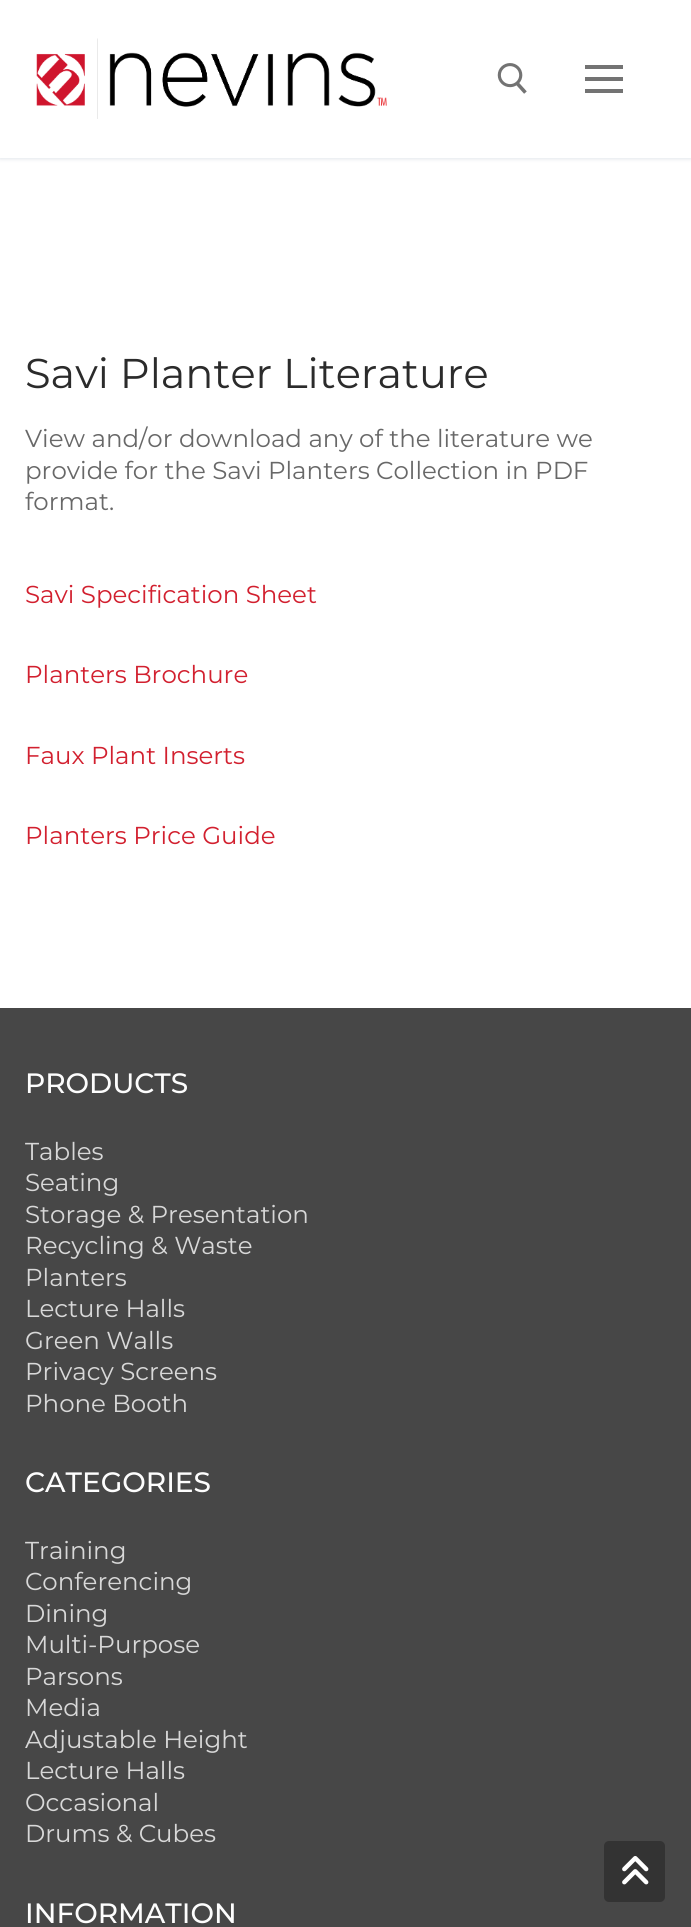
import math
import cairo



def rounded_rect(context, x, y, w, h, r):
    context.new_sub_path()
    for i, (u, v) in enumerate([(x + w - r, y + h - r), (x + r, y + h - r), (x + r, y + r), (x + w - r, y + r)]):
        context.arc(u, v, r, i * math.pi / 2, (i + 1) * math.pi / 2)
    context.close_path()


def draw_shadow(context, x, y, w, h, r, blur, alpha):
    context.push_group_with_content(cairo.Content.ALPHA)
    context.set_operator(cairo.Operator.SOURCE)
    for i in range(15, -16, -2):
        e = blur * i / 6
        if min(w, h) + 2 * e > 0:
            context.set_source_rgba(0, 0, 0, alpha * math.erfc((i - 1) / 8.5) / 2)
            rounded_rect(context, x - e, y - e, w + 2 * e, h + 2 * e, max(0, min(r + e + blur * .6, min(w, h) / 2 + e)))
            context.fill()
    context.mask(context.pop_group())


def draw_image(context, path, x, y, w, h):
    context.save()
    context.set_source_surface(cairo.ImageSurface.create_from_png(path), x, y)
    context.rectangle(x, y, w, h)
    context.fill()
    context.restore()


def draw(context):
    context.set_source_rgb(1, 1, 1)
    context.paint()
    context.set_source_rgb(225 / 255, 229 / 255, 234 / 255)
    draw_shadow(context, 0, 2, 691, 157, 0, 2, 1)
    context.set_source_rgb(1, 1, 1)
    context.rectangle(0, 0, 691, 158)
    context.fill()
    draw_image(context, "images/1.png", 36, 38, 351, 81)
    draw_image(context, "images/2.png", 497, 63, 30, 31)
    context.set_source_rgb(115 / 255, 115 / 255, 115 / 255)
    context.rectangle(585, 77, 38, 4)
    context.fill()
    context.rectangle(585, 65, 38, 4)
    context.fill()
    context.rectangle(585, 89, 38, 4)
    context.fill()
    context.set_source_rgb(71 / 255, 71 / 255, 71 / 255)
    context.rectangle(0, 1008, 691, 919)
    context.fill()
    context.set_source_rgb(51 / 255, 51 / 255, 51 / 255)
    rounded_rect(context, 604, 1841, 61, 61, 5)
    context.fill()
    draw_image(context, "images/3.png", 622, 1856, 27, 29)
    context.select_font_face("Montserrat")
    context.set_font_size(41.6)
    context.set_source_rgb(43 / 255, 43 / 255, 43 / 255)
    context.move_to(25, 388)
    context.show_text("Savi Planter Literature")
    context.set_font_size(24.5)
    context.set_source_rgb(104 / 255, 104 / 255, 104 / 255)
    context.move_to(25, 447)
    context.show_text("View and/or download any of the literature we")
    context.move_to(25, 479)
    context.show_text("provide for the Savi Planters Collection in PDF")
    context.move_to(25, 510)
    context.show_text("format.")
    context.set_source_rgb(210 / 255, 32 / 255, 47 / 255)
    context.move_to(25, 603)
    context.show_text("Savi Specification Sheet")
    context.move_to(25, 683)
    context.show_text("Planters Brochure")
    context.move_to(25, 764)
    context.show_text("Faux Plant Inserts")
    context.move_to(25, 844)
    context.show_text("Planters Price Guide")
    context.select_font_face("Montserrat Medium")
    context.set_font_size(28)
    context.set_source_rgb(253 / 255, 253 / 255, 253 / 255)
    context.move_to(25, 1093)
    context.show_text("PRODUCTS")
    context.select_font_face("Montserrat")
    context.set_font_size(24.5)
    context.set_source_rgb(216 / 255, 216 / 255, 216 / 255)
    context.move_to(25, 1160)
    context.show_text("Tables")
    context.move_to(25, 1191)
    context.show_text("Seating")
    context.move_to(25, 1223)
    context.show_text("Storage & Presentation")
    context.move_to(25, 1254)
    context.show_text("Recycling & Waste")
    context.move_to(25, 1286)
    context.show_text("Planters")
    context.move_to(25, 1317)
    context.show_text("Lecture Halls")
    context.move_to(25, 1349)
    context.show_text("Green Walls")
    context.move_to(25, 1380)
    context.show_text("Privacy Screens")
    context.move_to(25, 1412)
    context.show_text("Phone Booth")
    context.select_font_face("Montserrat Medium")
    context.set_font_size(28)
    context.set_source_rgb(253 / 255, 253 / 255, 253 / 255)
    context.move_to(25, 1492)
    context.show_text("CATEGORIES")
    context.select_font_face("Montserrat")
    context.set_font_size(24.5)
    context.set_source_rgb(216 / 255, 216 / 255, 216 / 255)
    context.move_to(25, 1559)
    context.show_text("Training")
    context.move_to(25, 1590)
    context.show_text("Conferencing")
    context.move_to(25, 1622)
    context.show_text("Dining")
    context.move_to(25, 1653)
    context.show_text("Multi-Purpose")
    context.move_to(25, 1685)
    context.show_text("Parsons")
    context.move_to(25, 1716)
    context.show_text("Media")
    context.move_to(25, 1748)
    context.show_text("Adjustable Height")
    context.move_to(25, 1779)
    context.show_text("Lecture Halls")
    context.move_to(25, 1811)
    context.show_text("Occasional")
    context.move_to(25, 1842)
    context.show_text("Drums & Cubes")
    context.select_font_face("Montserrat Medium")
    context.set_font_size(28)
    context.set_source_rgb(253 / 255, 253 / 255, 253 / 255)
    context.move_to(25, 1923)
    context.show_text("INFORMATION")


surface = cairo.ImageSurface(cairo.Format.RGB24, 691, 1927)
context = cairo.Context(surface)
options = cairo.FontOptions()
options.set_hint_metrics(cairo.HintMetrics.OFF)
options.set_hint_style(cairo.HintStyle.NONE)
context.set_font_options(options)
context.set_miter_limit(4)
draw(context)
surface.write_to_png("out.png")
